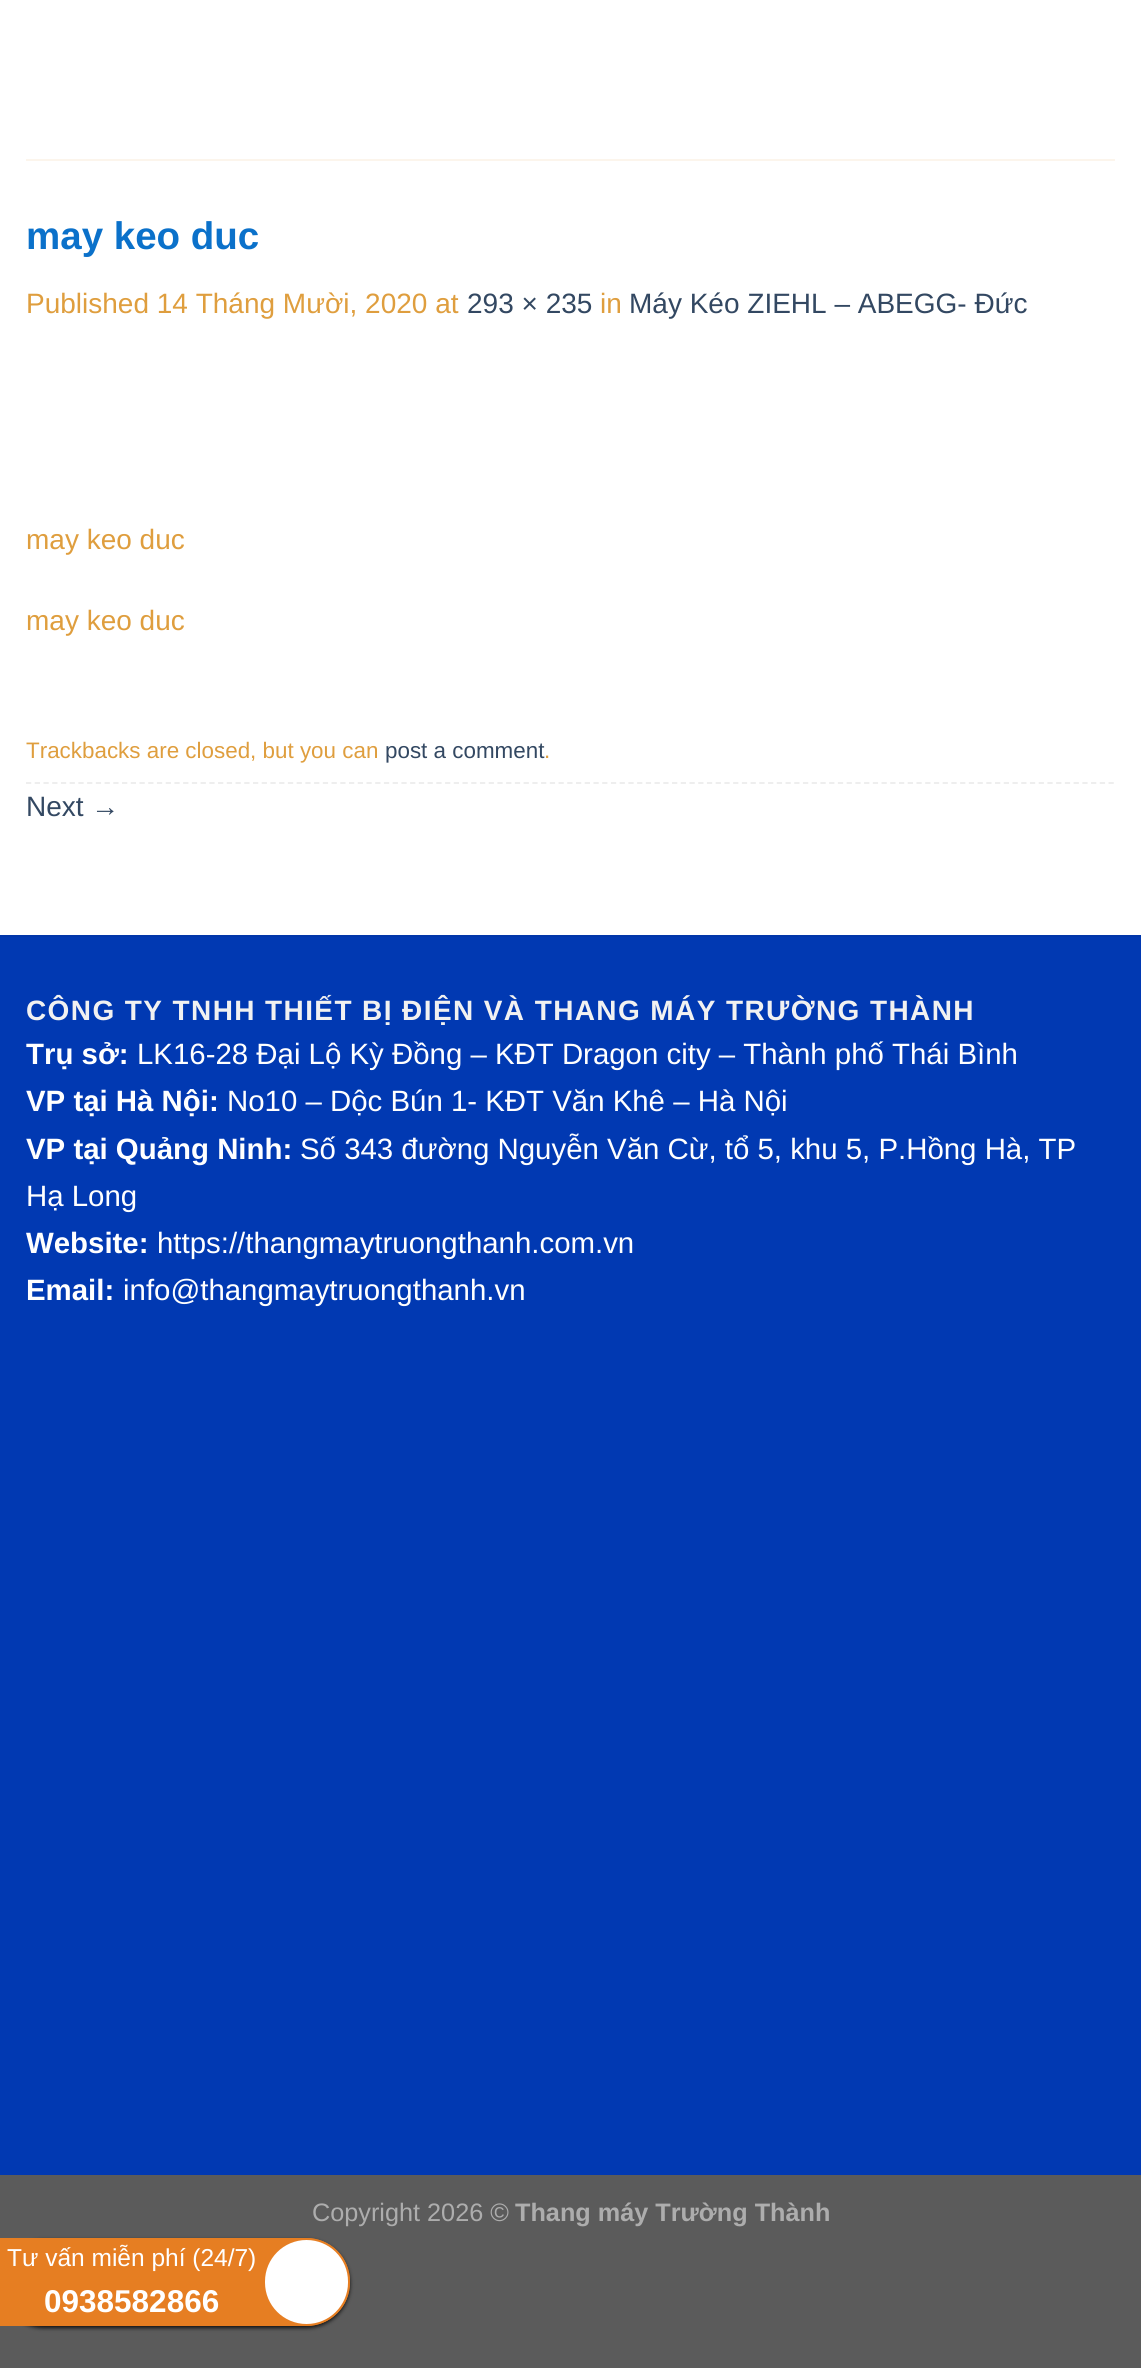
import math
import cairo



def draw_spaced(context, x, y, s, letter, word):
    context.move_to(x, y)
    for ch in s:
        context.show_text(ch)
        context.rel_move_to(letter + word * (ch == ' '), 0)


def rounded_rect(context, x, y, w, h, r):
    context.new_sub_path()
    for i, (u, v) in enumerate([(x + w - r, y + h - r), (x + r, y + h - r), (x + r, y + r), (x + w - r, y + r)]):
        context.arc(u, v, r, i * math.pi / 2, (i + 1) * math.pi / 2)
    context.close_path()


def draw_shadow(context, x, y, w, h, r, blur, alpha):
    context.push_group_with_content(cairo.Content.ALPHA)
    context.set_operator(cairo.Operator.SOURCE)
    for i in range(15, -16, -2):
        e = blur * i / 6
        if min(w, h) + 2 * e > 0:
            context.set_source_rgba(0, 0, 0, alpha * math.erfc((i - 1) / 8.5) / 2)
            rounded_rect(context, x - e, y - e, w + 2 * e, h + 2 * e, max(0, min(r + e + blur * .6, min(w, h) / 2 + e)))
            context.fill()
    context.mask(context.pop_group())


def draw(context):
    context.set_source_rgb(91 / 255, 91 / 255, 91 / 255)
    context.paint()
    context.set_source_rgb(1, 1, 1)
    context.rectangle(0, 0, 1141, 935)
    context.fill()
    context.set_source_rgb(252 / 255, 245 / 255, 236 / 255)
    context.rectangle(26, 159, 1089, 2)
    context.fill()
    context.new_path()
    context.move_to(26, 783)
    context.line_to(1115, 783)
    context.set_source_rgb(236 / 255, 236 / 255, 236 / 255)
    context.set_line_width(1.8)
    context.set_dash([5.25, 3.48])
    context.stroke()
    context.set_source_rgb(1 / 255, 57 / 255, 178 / 255)
    context.rectangle(0, 937, 1141, 1238)
    context.fill()
    context.set_source_rgb(1 / 255, 54 / 255, 169 / 255)
    context.rectangle(0, 935, 1141, 2)
    context.fill()
    context.set_source_rgb(0, 0, 0)
    draw_shadow(context, 0, 2240, 350, 88, 44, 2, 0.8)
    context.set_source_rgb(230 / 255, 126 / 255, 34 / 255)
    context.new_path()
    context.move_to(0, 2238)
    context.line_to(306, 2238)
    context.curve_to(330.5, 2238, 350, 2257.5, 350, 2282)
    context.curve_to(350, 2306.5, 330.5, 2326, 306, 2326)
    context.line_to(0, 2326)
    context.close_path()
    context.fill()
    context.set_source_rgb(1, 1, 1)
    rounded_rect(context, 264, 2239, 85, 86, 42.5)
    context.fill_preserve()
    context.set_source_rgb(230 / 255, 126 / 255, 34 / 255)
    context.set_line_width(2)
    context.set_dash([])
    context.stroke()
    context.select_font_face("Liberation Sans", cairo.FontSlant.NORMAL, cairo.FontWeight.BOLD)
    context.set_font_size(38.5)
    context.set_source_rgb(11 / 255, 113 / 255, 202 / 255)
    context.move_to(26, 249)
    context.show_text("may keo duc")
    context.select_font_face("Liberation Sans")
    context.set_font_size(28)
    context.set_source_rgb(223 / 255, 158 / 255, 62 / 255)
    context.move_to(26, 313)
    context.show_text("Published 14 Tháng Mười, 2020 at")
    context.set_source_rgb(51 / 255, 72 / 255, 98 / 255)
    context.move_to(467, 313)
    context.show_text("293 × 235")
    context.set_source_rgb(223 / 255, 158 / 255, 62 / 255)
    context.move_to(600, 313)
    context.show_text("in")
    context.set_source_rgb(51 / 255, 72 / 255, 98 / 255)
    context.move_to(629, 313)
    context.show_text("Máy Kéo ZIEHL – ABEGG- Đức")
    context.set_source_rgb(223 / 255, 158 / 255, 62 / 255)
    context.move_to(26, 549)
    context.show_text("may keo duc")
    context.move_to(26, 630)
    context.show_text("may keo duc")
    context.set_font_size(22.4)
    context.move_to(26, 758)
    context.show_text("Trackbacks are closed, but you can")
    context.set_source_rgb(51 / 255, 72 / 255, 98 / 255)
    context.move_to(385, 758)
    context.show_text("post a comment")
    context.set_source_rgb(223 / 255, 158 / 255, 62 / 255)
    context.move_to(544, 758)
    context.show_text(".")
    context.set_font_size(28)
    context.set_source_rgb(51 / 255, 72 / 255, 98 / 255)
    context.move_to(26, 816)
    context.show_text("Next →")
    context.select_font_face("Liberation Sans", cairo.FontSlant.NORMAL, cairo.FontWeight.BOLD)
    context.set_source_rgb(241 / 255, 241 / 255, 241 / 255)
    draw_spaced(context, 26, 1020, "CÔNG TY TNHH THIẾT BỊ ĐIỆN VÀ THANG MÁY TRƯỜNG THÀNH", 1.4, 0)
    context.set_font_size(29.4)
    context.set_source_rgb(1, 1, 1)
    context.move_to(26, 1064)
    context.show_text("Trụ sở:")
    context.select_font_face("Liberation Sans")
    context.move_to(137, 1064)
    context.show_text("LK16-28 Đại Lộ Kỳ Đồng – KĐT Dragon city – Thành phố Thái Bình")
    context.select_font_face("Liberation Sans", cairo.FontSlant.NORMAL, cairo.FontWeight.BOLD)
    context.move_to(26, 1111)
    context.show_text("VP tại Hà Nội:")
    context.select_font_face("Liberation Sans")
    context.move_to(227, 1111)
    context.show_text("No10 – Dộc Bún 1- KĐT Văn Khê – Hà Nội")
    context.select_font_face("Liberation Sans", cairo.FontSlant.NORMAL, cairo.FontWeight.BOLD)
    context.move_to(26, 1159)
    context.show_text("VP tại Quảng Ninh:")
    context.select_font_face("Liberation Sans")
    context.move_to(300, 1159)
    context.show_text("Số 343 đường Nguyễn Văn Cừ, tổ 5, khu 5, P.Hồng Hà, TP")
    context.move_to(26, 1206)
    context.show_text("Hạ Long")
    context.select_font_face("Liberation Sans", cairo.FontSlant.NORMAL, cairo.FontWeight.BOLD)
    context.move_to(26, 1253)
    context.show_text("Website:")
    context.select_font_face("Liberation Sans")
    context.move_to(157, 1253)
    context.show_text("https://thangmaytruongthanh.com.vn")
    context.select_font_face("Liberation Sans", cairo.FontSlant.NORMAL, cairo.FontWeight.BOLD)
    context.move_to(26, 1300)
    context.show_text("Email:")
    context.select_font_face("Liberation Sans")
    context.move_to(123, 1300)
    context.show_text("info@thangmaytruongthanh.vn")
    context.set_font_size(25.25)
    context.set_source_rgb(173 / 255, 173 / 255, 173 / 255)
    context.move_to(312, 2221)
    context.show_text("Copyright 2026 ©")
    context.select_font_face("Liberation Sans", cairo.FontSlant.NORMAL, cairo.FontWeight.BOLD)
    context.move_to(515, 2221)
    context.show_text("Thang máy Trường Thành")
    context.select_font_face("Liberation Sans")
    context.set_font_size(24.5)
    context.set_source_rgb(1, 1, 1)
    context.move_to(7, 2266)
    context.show_text("Tư vấn miễn phí (24/7)")
    context.select_font_face("Liberation Sans", cairo.FontSlant.NORMAL, cairo.FontWeight.BOLD)
    context.set_font_size(31.5)
    context.move_to(44, 2312)
    context.show_text("0938582866")


surface = cairo.ImageSurface(cairo.Format.RGB24, 1141, 2368)
context = cairo.Context(surface)
options = cairo.FontOptions()
options.set_hint_metrics(cairo.HintMetrics.OFF)
options.set_hint_style(cairo.HintStyle.NONE)
context.set_font_options(options)
context.set_miter_limit(4)
draw(context)
surface.write_to_png("out.png")
